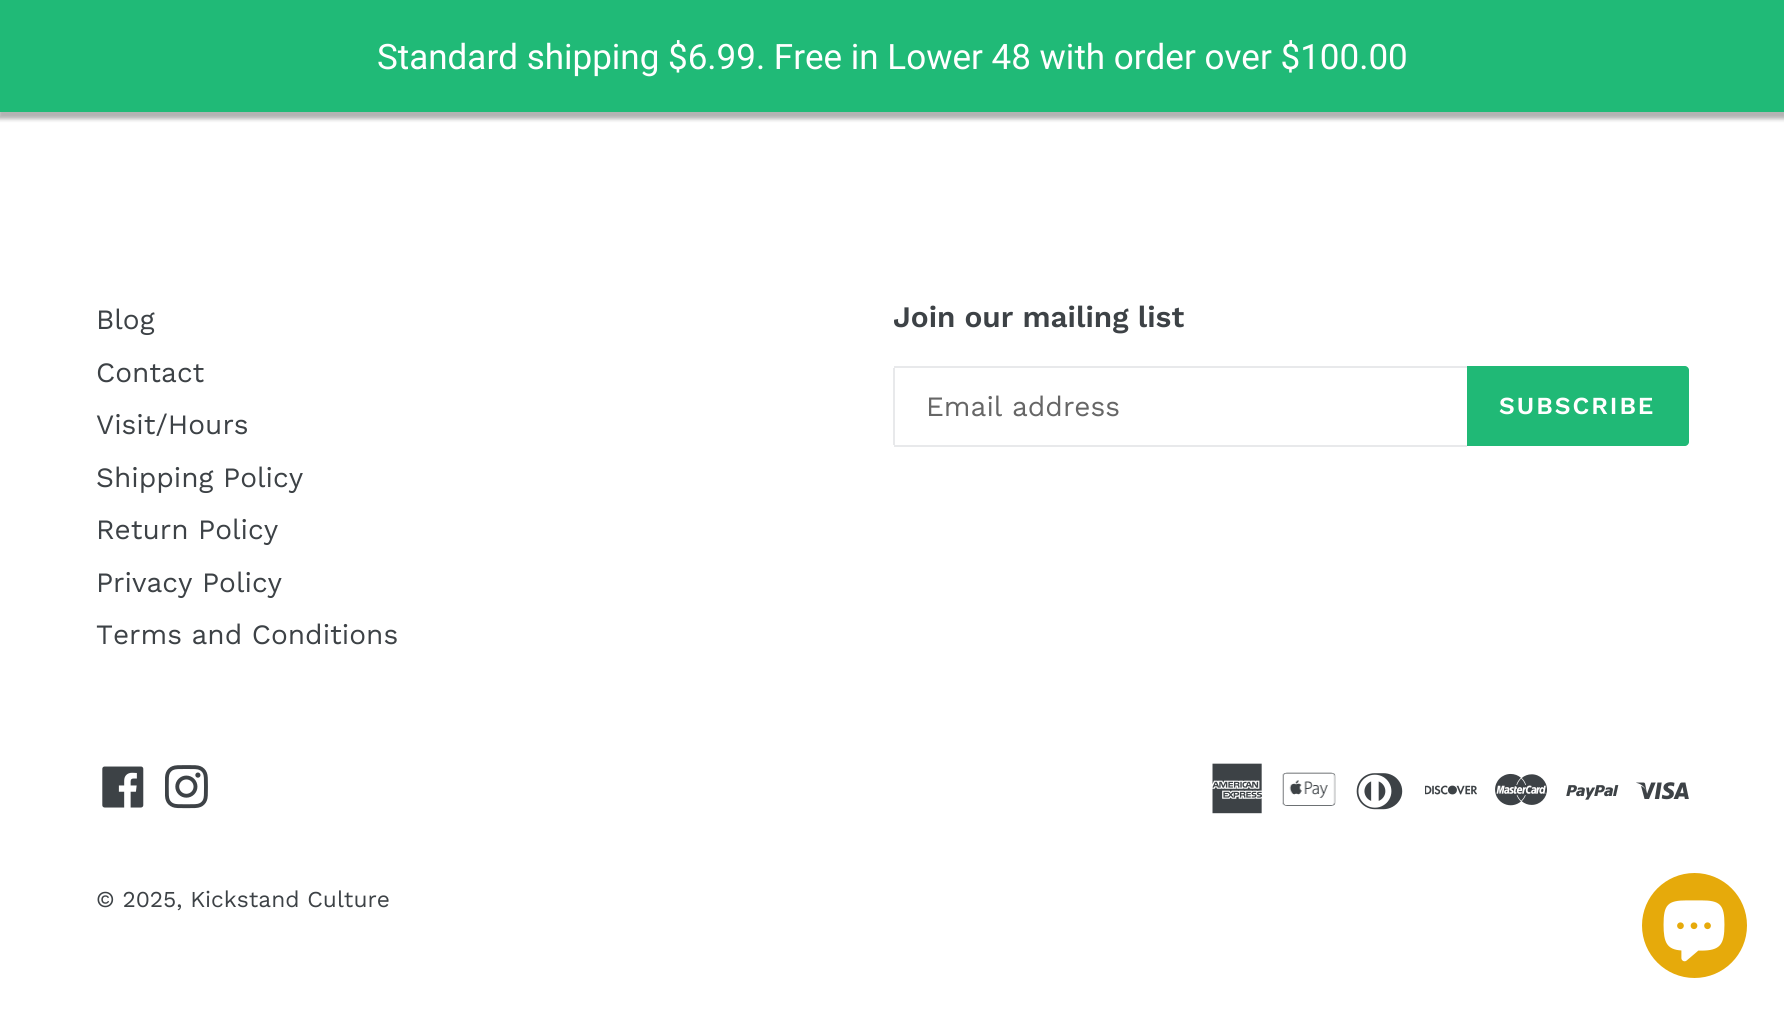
import math
import cairo



def draw_spaced(context, x, y, s, letter, word):
    context.move_to(x, y)
    for ch in s:
        context.show_text(ch)
        context.rel_move_to(letter + word * (ch == ' '), 0)


def rounded_rect(context, x, y, w, h, r):
    context.new_sub_path()
    for i, (u, v) in enumerate([(x + w - r, y + h - r), (x + r, y + h - r), (x + r, y + r), (x + w - r, y + r)]):
        context.arc(u, v, r, i * math.pi / 2, (i + 1) * math.pi / 2)
    context.close_path()


def draw_shadow(context, x, y, w, h, r, blur, alpha):
    context.push_group_with_content(cairo.Content.ALPHA)
    context.set_operator(cairo.Operator.SOURCE)
    for i in range(15, -16, -2):
        e = blur * i / 6
        if min(w, h) + 2 * e > 0:
            context.set_source_rgba(0, 0, 0, alpha * math.erfc((i - 1) / 8.5) / 2)
            rounded_rect(context, x - e, y - e, w + 2 * e, h + 2 * e, max(0, min(r + e + blur * .6, min(w, h) / 2 + e)))
            context.fill()
    context.mask(context.pop_group())


def draw_image(context, path, x, y, w, h):
    context.save()
    context.set_source_surface(cairo.ImageSurface.create_from_png(path), x, y)
    context.rectangle(x, y, w, h)
    context.fill()
    context.restore()


def draw(context):
    context.set_source_rgb(1, 1, 1)
    context.paint()
    context.set_source_rgb(0, 0, 0)
    draw_shadow(context, -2, 4, 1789, 115, 0, 2, 0.3)
    context.set_source_rgb(32 / 255, 186 / 255, 119 / 255)
    context.rectangle(0, 0, 1784, 112)
    context.fill()
    context.set_source_rgb(232 / 255, 233 / 255, 235 / 255)
    context.rectangle(894, 366, 573, 2)
    context.fill()
    context.rectangle(894, 445, 573, 2)
    context.fill()
    context.rectangle(893, 368, 2, 77)
    context.fill()
    context.set_source_rgb(32 / 255, 185 / 255, 118 / 255)
    context.new_path()
    context.move_to(1467, 366)
    context.line_to(1685, 366)
    context.curve_to(1687, 366, 1689, 368, 1689, 370)
    context.line_to(1689, 442)
    context.curve_to(1689, 444, 1687, 446, 1685, 446)
    context.line_to(1467, 446)
    context.close_path()
    context.fill()
    draw_image(context, "images/1.png", 102, 766, 42, 42)
    draw_image(context, "images/2.png", 165, 765, 43, 44)
    draw_image(context, "images/3.png", 1212, 763, 50, 51)
    draw_image(context, "images/4.png", 1282, 772, 54, 34)
    draw_image(context, "images/5.png", 1356, 773, 47, 37)
    draw_image(context, "images/6.png", 1425, 785, 52, 10)
    draw_image(context, "images/7.png", 1495, 773, 52, 33)
    draw_image(context, "images/8.png", 1566, 785, 53, 15)
    draw_image(context, "images/9.png", 1636, 782, 53, 18)
    context.set_source_rgb(230 / 255, 170 / 255, 11 / 255)
    context.arc(1694.5, 925.5, 52.5, 0, 2 * math.pi)
    context.fill()
    draw_image(context, "images/10.png", 1663, 900, 62, 62)
    context.select_font_face("Roboto")
    context.set_font_size(35)
    context.set_source_rgb(1, 1, 1)
    context.move_to(377, 69)
    context.show_text("Standard shipping $6.99. Free in Lower 48 with order over $100.00")
    context.select_font_face("Work Sans")
    context.set_font_size(28)
    context.set_source_rgb(61 / 255, 66 / 255, 70 / 255)
    context.move_to(96, 329)
    context.show_text("Blog")
    context.move_to(96, 382)
    context.show_text("Contact")
    context.move_to(96, 434)
    context.show_text("Visit/Hours")
    context.move_to(96, 487)
    context.show_text("Shipping Policy")
    context.move_to(96, 539)
    context.show_text("Return Policy")
    context.move_to(96, 592)
    context.show_text("Privacy Policy")
    context.move_to(96, 644)
    context.show_text("Terms and Conditions")
    context.select_font_face("Work Sans SemiBold")
    context.set_font_size(29.75)
    context.move_to(893, 327)
    context.show_text("Join our mailing list")
    context.select_font_face("Work Sans")
    context.set_font_size(28)
    context.set_source_rgb(102 / 255, 102 / 255, 102 / 255)
    context.move_to(926, 416)
    context.show_text("Email address")
    context.select_font_face("Work Sans SemiBold")
    context.set_font_size(24.5)
    context.set_source_rgb(1, 1, 1)
    draw_spaced(context, 1499, 414, "SUBSCRIBE", 2, 0)
    context.select_font_face("Work Sans")
    context.set_font_size(22.75)
    context.set_source_rgb(61 / 255, 66 / 255, 70 / 255)
    context.move_to(96, 907)
    context.show_text("© 2025, Kickstand Culture")


surface = cairo.ImageSurface(cairo.Format.RGB24, 1784, 1015)
context = cairo.Context(surface)
options = cairo.FontOptions()
options.set_hint_metrics(cairo.HintMetrics.OFF)
options.set_hint_style(cairo.HintStyle.NONE)
context.set_font_options(options)
context.set_miter_limit(4)
draw(context)
surface.write_to_png("out.png")
